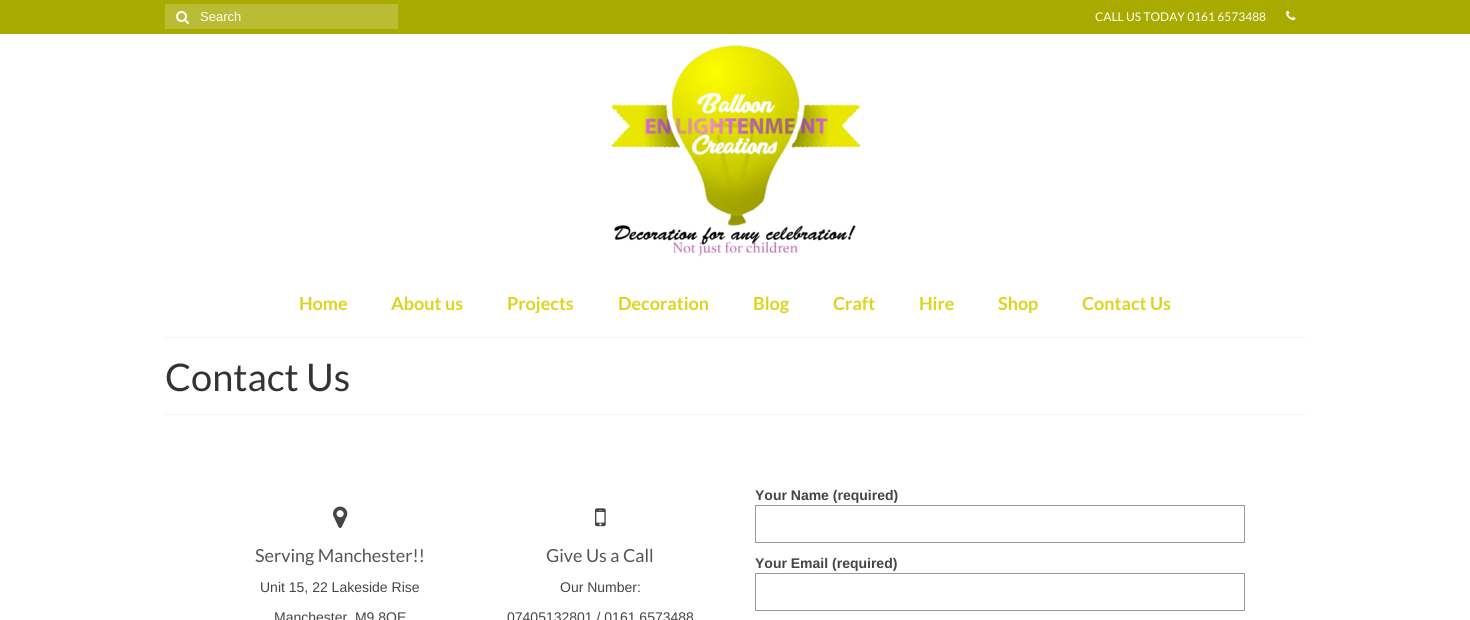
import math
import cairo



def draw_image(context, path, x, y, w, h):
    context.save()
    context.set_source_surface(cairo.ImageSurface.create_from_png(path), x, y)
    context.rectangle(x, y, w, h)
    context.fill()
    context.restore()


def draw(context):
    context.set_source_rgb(1, 1, 1)
    context.paint()
    context.set_source_rgb(169 / 255, 171 / 255, 0)
    context.rectangle(0, 0, 1470, 34)
    context.fill()
    context.set_source_rgb(186 / 255, 188 / 255, 51 / 255)
    context.rectangle(165, 4, 233, 25)
    context.fill()
    draw_image(context, "images/1.png", 176, 11, 13, 13)
    draw_image(context, "images/2.png", 1286, 10, 10, 11)
    draw_image(context, "images/3.png", 611, 45, 249, 212)
    context.set_source_rgb(242 / 255, 242 / 255, 242 / 255)
    context.rectangle(165, 337, 1140, 1)
    context.fill()
    context.rectangle(165, 414, 1140, 1)
    context.fill()
    context.rectangle(755.5, 505.5, 489, 37)
    context.set_source_rgb(153 / 255, 153 / 255, 153 / 255)
    context.set_line_width(1)
    context.stroke()
    context.rectangle(755.5, 573.5, 489, 37)
    context.stroke()
    draw_image(context, "images/4.png", 333, 506, 15, 22)
    draw_image(context, "images/5.png", 595, 508, 11, 19)
    context.select_font_face("Liberation Sans")
    context.set_font_size(13)
    context.set_source_rgb(1, 1, 1)
    context.move_to(200, 21)
    context.show_text("Search")
    context.select_font_face("Lato")
    context.set_font_size(12)
    context.move_to(1095, 21)
    context.show_text("CALL US TODAY 0161 6573488")
    context.select_font_face("Lato", cairo.FontSlant.NORMAL, cairo.FontWeight.BOLD)
    context.set_font_size(18)
    context.set_source_rgb(219 / 255, 213 / 255, 30 / 255)
    context.move_to(299, 310)
    context.show_text("Home")
    context.move_to(391, 310)
    context.show_text("About us")
    context.move_to(507, 310)
    context.show_text("Projects")
    context.move_to(618, 310)
    context.show_text("Decoration")
    context.move_to(753, 310)
    context.show_text("Blog")
    context.move_to(833, 310)
    context.show_text("Craft")
    context.move_to(919, 310)
    context.show_text("Hire")
    context.move_to(998, 310)
    context.show_text("Shop")
    context.move_to(1082, 310)
    context.show_text("Contact Us")
    context.select_font_face("Lato")
    context.set_font_size(38)
    context.set_source_rgb(51 / 255, 51 / 255, 51 / 255)
    context.move_to(165, 391)
    context.show_text("Contact Us")
    context.select_font_face("Liberation Sans", cairo.FontSlant.NORMAL, cairo.FontWeight.BOLD)
    context.set_font_size(14)
    context.set_source_rgb(68 / 255, 68 / 255, 68 / 255)
    context.move_to(755, 500)
    context.show_text("Your Name (required)")
    context.move_to(755, 568)
    context.show_text("Your Email (required)")
    context.select_font_face("Lato")
    context.set_font_size(18)
    context.set_source_rgb(85 / 255, 85 / 255, 85 / 255)
    context.move_to(255, 562)
    context.show_text("Serving Manchester!!")
    context.select_font_face("Liberation Sans")
    context.set_font_size(14)
    context.set_source_rgb(68 / 255, 68 / 255, 68 / 255)
    context.move_to(260, 592)
    context.show_text("Unit 15, 22 Lakeside Rise")
    context.move_to(274, 622)
    context.show_text("Manchester, M9 8QE")
    context.select_font_face("Lato")
    context.set_font_size(18)
    context.set_source_rgb(85 / 255, 85 / 255, 85 / 255)
    context.move_to(546, 562)
    context.show_text("Give Us a Call")
    context.select_font_face("Liberation Sans")
    context.set_font_size(14)
    context.set_source_rgb(68 / 255, 68 / 255, 68 / 255)
    context.move_to(560, 592)
    context.show_text("Our Number:")
    context.move_to(507, 622)
    context.show_text("07405132801 / 0161 6573488")


surface = cairo.ImageSurface(cairo.Format.RGB24, 1470, 620)
context = cairo.Context(surface)
options = cairo.FontOptions()
options.set_hint_metrics(cairo.HintMetrics.OFF)
options.set_hint_style(cairo.HintStyle.NONE)
context.set_font_options(options)
context.set_miter_limit(4)
draw(context)
surface.write_to_png("out.png")
